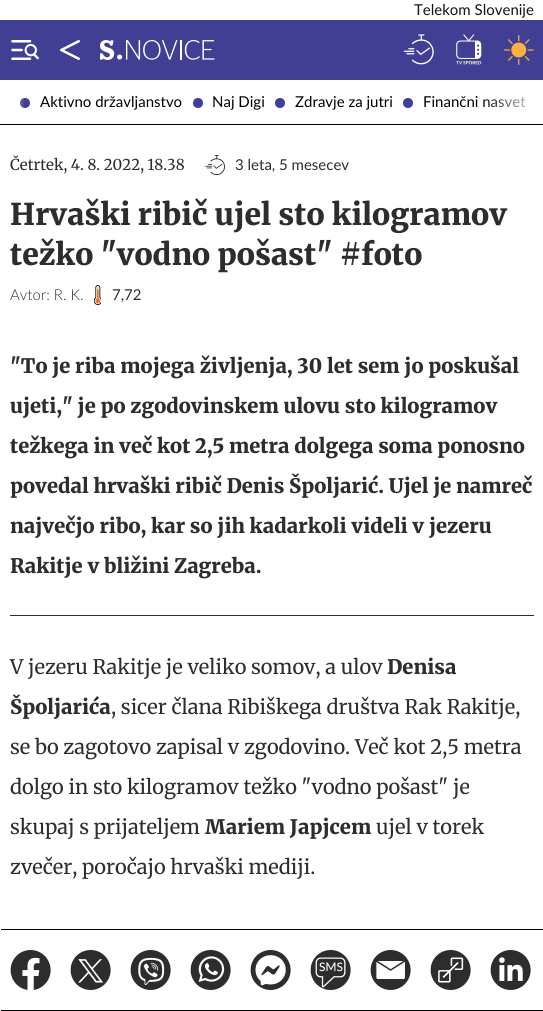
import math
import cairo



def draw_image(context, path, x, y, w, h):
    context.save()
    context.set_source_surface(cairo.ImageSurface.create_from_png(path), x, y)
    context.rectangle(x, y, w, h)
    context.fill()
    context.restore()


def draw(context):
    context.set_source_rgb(1, 1, 1)
    context.paint()
    context.set_source_rgb(65 / 255, 63 / 255, 147 / 255)
    context.rectangle(0, 20, 543, 60)
    context.fill()
    draw_image(context, "images/1.png", 11, 40, 28, 20)
    draw_image(context, "images/2.png", 60, 40, 20, 20)
    draw_image(context, "images/3.png", 100, 40, 115, 20)
    draw_image(context, "images/4.png", 403, 34, 31, 31)
    draw_image(context, "images/5.png", 456, 34, 26, 31)
    draw_image(context, "images/6.png", 504, 35, 30, 30)
    context.set_source_rgb(0, 0, 0)
    context.rectangle(0, 124, 543, 1)
    context.fill()
    context.set_source_rgb(65 / 255, 63 / 255, 147 / 255)
    context.arc(25, 103, 5, 0, 2 * math.pi)
    context.fill()
    context.arc(198, 103, 5, 0, 2 * math.pi)
    context.fill()
    context.arc(280, 103, 5, 0, 2 * math.pi)
    context.fill()
    context.arc(408, 103, 5, 0, 2 * math.pi)
    context.fill()
    gradient = cairo.LinearGradient(0, 102, 25, 102)
    gradient.add_color_stop_rgba(0, 1, 1, 1, 1)
    gradient.add_color_stop_rgba(1, 1, 1, 1, 0)
    context.set_source(gradient)
    context.rectangle(20, 98, 4, 10)
    context.fill()
    draw_image(context, "images/7.png", 205, 155, 20, 20)
    draw_image(context, "images/8.png", 94, 285, 7, 20)
    context.set_source_rgb(46 / 255, 45 / 255, 44 / 255)
    context.rectangle(10, 615, 524, 1)
    context.fill()
    context.set_source_rgb(0, 0, 0)
    context.rectangle(1, 929, 542, 1)
    context.fill()
    context.rectangle(1, 1010, 542, 1)
    context.fill()
    draw_image(context, "images/9.png", 10, 950, 41, 40)
    draw_image(context, "images/10.png", 70, 950, 41, 40)
    draw_image(context, "images/11.png", 130, 950, 41, 40)
    draw_image(context, "images/12.png", 190, 950, 41, 40)
    draw_image(context, "images/13.png", 250, 950, 41, 40)
    draw_image(context, "images/14.png", 310, 950, 41, 40)
    draw_image(context, "images/15.png", 370, 950, 41, 40)
    draw_image(context, "images/16.png", 430, 950, 41, 40)
    draw_image(context, "images/17.png", 490, 950, 41, 40)
    context.select_font_face("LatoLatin")
    context.set_font_size(15)
    context.set_source_rgb(18 / 255, 18 / 255, 18 / 255)
    context.move_to(414, 15)
    context.show_text("Telekom Slovenije")
    context.set_source_rgb(0, 0, 0)
    context.move_to(40, 107)
    context.show_text("Aktivno državljanstvo")
    context.move_to(212, 107)
    context.show_text("Naj Digi")
    context.move_to(295, 107)
    context.show_text("Zdravje za jutri")
    context.move_to(423, 107)
    context.show_text("Finančni nasvet")
    gradient = cairo.LinearGradient(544, 102, 481, 102)
    gradient.add_color_stop_rgba(0, 1, 1, 1, 1)
    gradient.add_color_stop_rgba(1, 1, 1, 1, 0)
    context.set_source(gradient)
    context.rectangle(483, 96, 43, 12)
    context.fill()
    context.select_font_face("Merriweather")
    context.set_source_rgb(46 / 255, 45 / 255, 44 / 255)
    context.move_to(10, 170)
    context.show_text("Četrtek, 4. 8. 2022, 18.38")
    context.select_font_face("LatoLatin")
    context.move_to(235, 170)
    context.show_text("3 leta, 5 mesecev")
    context.select_font_face("Merriweather Black")
    context.set_font_size(30)
    context.move_to(10, 225)
    context.show_text("Hrvaški ribič ujel sto kilogramov")
    context.move_to(10, 265)
    context.show_text("težko \"vodno pošast\" #foto")
    context.select_font_face("LatoLatin Light")
    context.set_font_size(15)
    context.move_to(10, 300)
    context.show_text("Avtor: R. K.")
    context.select_font_face("LatoLatin")
    context.move_to(112, 300)
    context.show_text("7,72")
    context.select_font_face("Merriweather Black")
    context.set_font_size(20)
    context.move_to(10, 373)
    context.show_text("\"To je riba mojega življenja, 30 let sem jo poskušal")
    context.move_to(10, 413)
    context.show_text("ujeti,\" je po zgodovinskem ulovu sto kilogramov")
    context.move_to(10, 453)
    context.show_text("težkega in več kot 2,5 metra dolgega soma ponosno")
    context.move_to(10, 493)
    context.show_text("povedal hrvaški ribič Denis Špoljarić. Ujel je namreč")
    context.move_to(10, 533)
    context.show_text("največjo ribo, kar so jih kadarkoli videli v jezeru")
    context.move_to(10, 573)
    context.show_text("Rakitje v bližini Zagreba.")
    context.select_font_face("Merriweather")
    context.move_to(10, 674)
    context.show_text("V jezeru Rakitje je veliko somov, a ulov")
    context.select_font_face("Merriweather Black")
    context.move_to(387, 674)
    context.show_text("Denisa")
    context.move_to(10, 714)
    context.show_text("Špoljarića")
    context.select_font_face("Merriweather")
    context.move_to(111, 714)
    context.show_text(", sicer člana Ribiškega društva Rak Rakitje,")
    context.move_to(10, 754)
    context.show_text("se bo zagotovo zapisal v zgodovino. Več kot 2,5 metra")
    context.move_to(10, 794)
    context.show_text("dolgo in sto kilogramov težko \"vodno pošast\" je")
    context.move_to(10, 834)
    context.show_text("skupaj s prijateljem")
    context.select_font_face("Merriweather Black")
    context.move_to(205, 834)
    context.show_text("Mariem Japjcem")
    context.select_font_face("Merriweather")
    context.move_to(376, 834)
    context.show_text("ujel v torek")
    context.move_to(10, 874)
    context.show_text("zvečer, poročajo hrvaški mediji.")


surface = cairo.ImageSurface(cairo.Format.RGB24, 543, 1011)
context = cairo.Context(surface)
options = cairo.FontOptions()
options.set_hint_metrics(cairo.HintMetrics.OFF)
options.set_hint_style(cairo.HintStyle.NONE)
context.set_font_options(options)
context.set_miter_limit(4)
draw(context)
surface.write_to_png("out.png")
